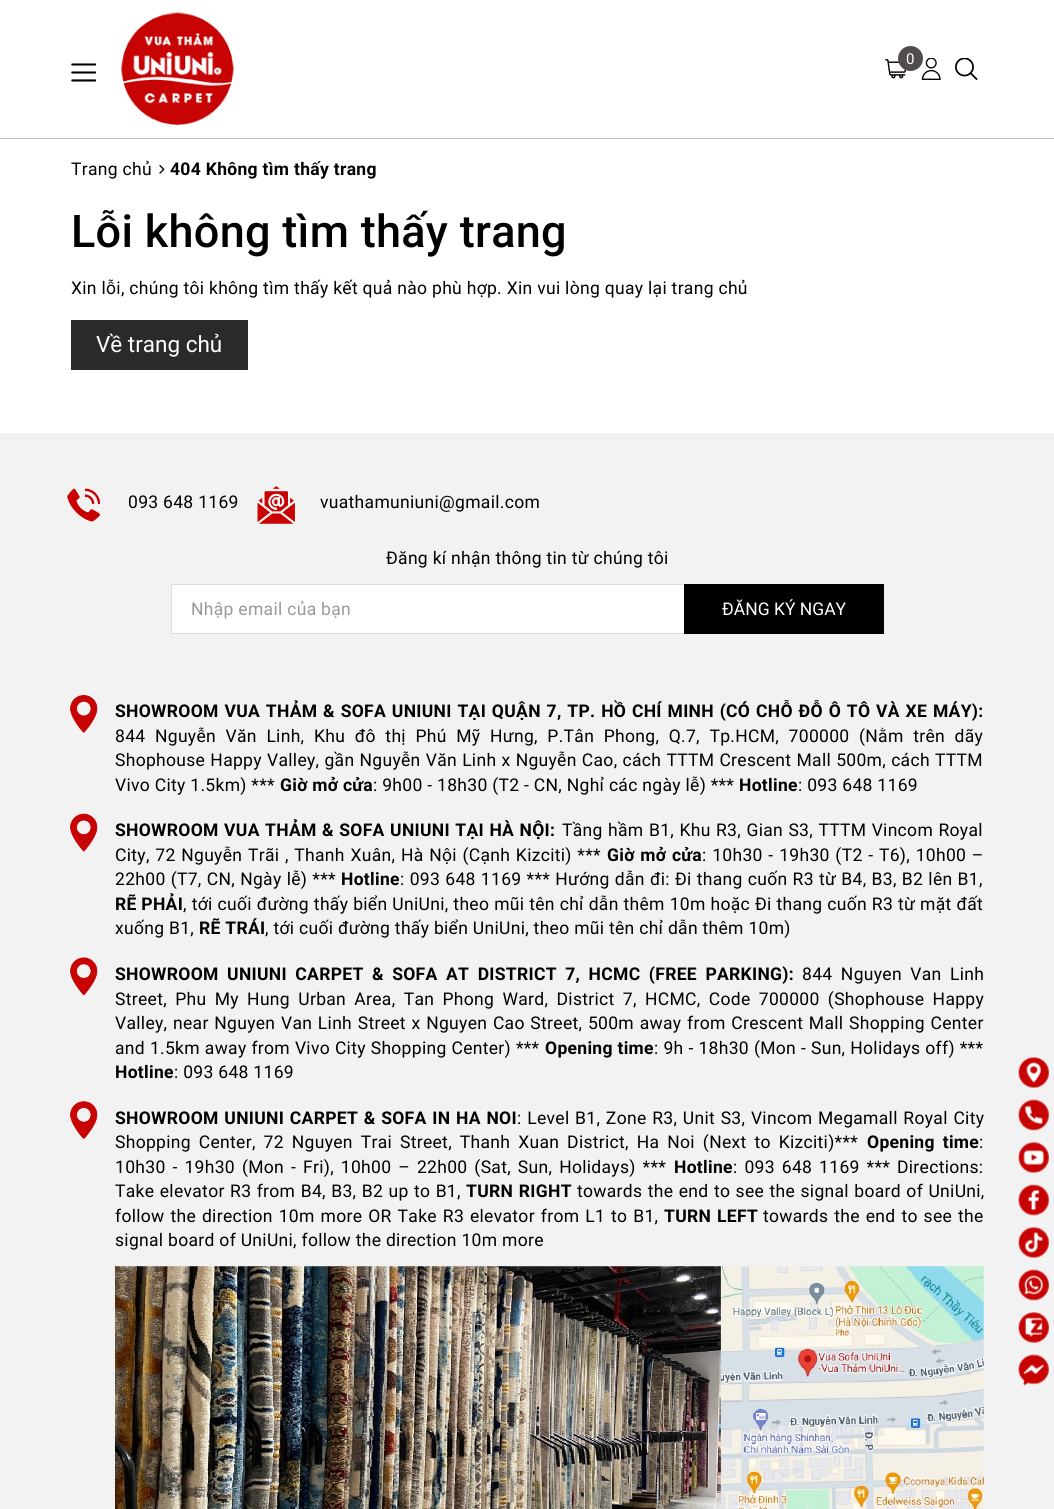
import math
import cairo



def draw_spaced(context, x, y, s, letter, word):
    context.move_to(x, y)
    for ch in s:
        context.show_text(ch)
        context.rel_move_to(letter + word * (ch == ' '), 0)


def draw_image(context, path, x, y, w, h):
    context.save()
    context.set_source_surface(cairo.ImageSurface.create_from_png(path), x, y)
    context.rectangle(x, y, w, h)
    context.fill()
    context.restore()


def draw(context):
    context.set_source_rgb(1, 1, 1)
    context.paint()
    context.set_source_rgb(193 / 255, 193 / 255, 193 / 255)
    context.rectangle(0, 138, 1054, 1)
    context.fill()
    draw_image(context, "images/1.png", 71, 63, 25, 19)
    draw_image(context, "images/2.png", 121, 12, 113, 113)
    draw_image(context, "images/3.png", 885, 59, 21, 20)
    draw_image(context, "images/4.png", 921, 58, 20, 22)
    context.set_source_rgb(80 / 255, 77 / 255, 76 / 255)
    context.arc(910.5, 58.5, 12.5, 0, 2 * math.pi)
    context.fill()
    draw_image(context, "images/5.png", 955, 58, 23, 22)
    draw_image(context, "images/6.png", 159, 165, 6, 9)
    context.set_source_rgb(42 / 255, 42 / 255, 42 / 255)
    context.rectangle(71, 320, 177, 50)
    context.fill()
    context.set_source_rgb(242 / 255, 242 / 255, 242 / 255)
    context.rectangle(0, 433, 1054, 1076)
    context.fill()
    draw_image(context, "images/7.png", 67, 488, 33, 34)
    draw_image(context, "images/8.png", 257, 486, 38, 38)
    context.set_source_rgb(1, 1, 1)
    context.rectangle(172, 585, 512, 48)
    context.fill()
    context.rectangle(171.5, 584.5, 712, 49)
    context.set_source_rgb(221 / 255, 221 / 255, 221 / 255)
    context.set_line_width(1)
    context.stroke()
    context.set_source_rgb(0, 0, 0)
    context.rectangle(684, 584, 200, 50)
    context.fill()
    draw_image(context, "images/9.png", 70, 695, 28, 38)
    draw_image(context, "images/10.png", 70, 813, 28, 39)
    draw_image(context, "images/11.png", 70, 957, 28, 38)
    draw_image(context, "images/12.png", 70, 1101, 28, 38)
    draw_image(context, "images/13.png", 115, 1266, 869, 243)
    draw_image(context, "images/14.png", 1018, 1057, 31, 31)
    draw_image(context, "images/15.png", 1018, 1099, 31, 32)
    draw_image(context, "images/16.png", 1018, 1142, 31, 31)
    draw_image(context, "images/17.png", 1018, 1184, 31, 32)
    draw_image(context, "images/18.png", 1018, 1227, 31, 31)
    draw_image(context, "images/19.png", 1018, 1269, 31, 32)
    draw_image(context, "images/20.png", 1018, 1312, 31, 31)
    draw_image(context, "images/21.png", 1018, 1354, 31, 32)
    context.select_font_face("Roboto")
    context.set_font_size(15)
    context.set_source_rgb(1, 1, 1)
    draw_spaced(context, 906, 64, "0", 0.31, 0)
    context.set_font_size(17.5)
    context.set_source_rgb(0, 0, 0)
    draw_spaced(context, 71, 175, "Trang chủ", 0.31, 0)
    context.select_font_face("Roboto", cairo.FontSlant.NORMAL, cairo.FontWeight.BOLD)
    draw_spaced(context, 170, 175, "404 Không tìm thấy trang", 0.31, 0)
    context.select_font_face("Roboto Medium")
    context.set_font_size(45)
    draw_spaced(context, 71, 247, "Lỗi không tìm thấy trang", 0.31, 0)
    context.select_font_face("Roboto")
    context.set_font_size(17.5)
    draw_spaced(context, 71, 294, "Xin lỗi, chúng tôi không tìm thấy kết quả nào phù hợp. Xin vui lòng quay lại trang chủ", 0.31, 0)
    context.set_font_size(22.5)
    context.set_source_rgb(1, 1, 1)
    context.move_to(96, 352)
    context.show_text("Về trang chủ")
    context.set_font_size(17.5)
    context.set_source_rgb(0, 0, 0)
    draw_spaced(context, 128, 508, "093 648 1169", 0.31, 0)
    draw_spaced(context, 320, 508, "vuathamuniuni@gmail.com", 0.31, 0)
    draw_spaced(context, 386, 564, "Đăng kí nhận thông tin từ chúng tôi", 0.31, 0)
    context.set_source_rgb(153 / 255, 153 / 255, 153 / 255)
    draw_spaced(context, 191, 615, "Nhập email của bạn", 0.31, 0)
    context.set_source_rgb(1, 1, 1)
    context.move_to(722, 615)
    context.show_text("ĐĂNG KÝ NGAY")
    context.select_font_face("Roboto", cairo.FontSlant.NORMAL, cairo.FontWeight.BOLD)
    context.set_source_rgb(0, 0, 0)
    draw_spaced(context, 115, 717, "SHOWROOM VUA THẢM & SOFA UNIUNI TẠI QUẬN 7, TP. HỒ CHÍ MINH (CÓ CHỖ ĐỖ Ô TÔ VÀ XE MÁY):", 0.31, 1.1)
    context.select_font_face("Roboto")
    draw_spaced(context, 115, 742, "844 Nguyễn Văn Linh,", 0.31, 4.9)
    draw_spaced(context, 314, 742, "Khu đô thị Phú Mỹ Hưng, P.Tân Phong, Q.7, Tp.HCM, 700000 (Nằm trên dãy", 0.31, 4.9)
    draw_spaced(context, 115, 766, "Shophouse Happy Valley, gần Nguyễn Văn Linh x Nguyễn Cao, cách TTTM Crescent Mall 500m, cách TTTM", 0.31, 0.5)
    draw_spaced(context, 115, 791, "Vivo City 1.5km) ***", 0.31, 0)
    context.select_font_face("Roboto", cairo.FontSlant.NORMAL, cairo.FontWeight.BOLD)
    draw_spaced(context, 280, 791, "Giờ mở cửa", 0.31, 0)
    context.select_font_face("Roboto")
    draw_spaced(context, 373, 791, ": 9h00 - 18h30 (T2 - CN, Nghỉ các ngày lễ) ***", 0.31, 0)
    context.select_font_face("Roboto", cairo.FontSlant.NORMAL, cairo.FontWeight.BOLD)
    draw_spaced(context, 739, 791, "Hotline", 0.31, 0)
    context.select_font_face("Roboto")
    draw_spaced(context, 798, 791, ": 093 648 1169", 0.31, 0)
    context.select_font_face("Roboto", cairo.FontSlant.NORMAL, cairo.FontWeight.BOLD)
    draw_spaced(context, 115, 836, "SHOWROOM VUA THẢM & SOFA UNIUNI TẠI HÀ NỘI:", 0.31, 0.75)
    context.select_font_face("Roboto")
    draw_spaced(context, 562, 836, "Tầng hầm B1, Khu R3, Gian S3, TTTM Vincom Royal", 0.31, 0.75)
    draw_spaced(context, 115, 861, "City, 72 Nguyễn Trãi , Thanh Xuân, Hà Nội (Cạnh Kizciti) ***", 0.31, 1)
    context.select_font_face("Roboto", cairo.FontSlant.NORMAL, cairo.FontWeight.BOLD)
    draw_spaced(context, 607, 861, "Giờ mở cửa", 0.31, 1)
    context.select_font_face("Roboto")
    draw_spaced(context, 702, 861, ": 10h30 - 19h30 (T2 - T6), 10h00 –", 0.31, 1)
    draw_spaced(context, 115, 885, "22h00 (T7, CN, Ngày lễ) ***", 0.31, 0.5)
    context.select_font_face("Roboto", cairo.FontSlant.NORMAL, cairo.FontWeight.BOLD)
    draw_spaced(context, 341, 885, "Hotline", 0.31, 0)
    context.select_font_face("Roboto")
    draw_spaced(context, 400, 885, ": 093 648 1169 *** Hướng dẫn đi: Đi thang cuốn R3 từ B4, B3, B2 lên B1,", 0.31, 0.5)
    context.select_font_face("Roboto", cairo.FontSlant.NORMAL, cairo.FontWeight.BOLD)
    draw_spaced(context, 115, 910, "RẼ PHẢI", 0.31, 0)
    context.select_font_face("Roboto")
    draw_spaced(context, 183, 910, ", tới cuối đường thấy biển UniUni, theo mũi tên chỉ dẫn thêm 10m hoặc Đi thang cuốn R3 từ mặt đất", 0.31, 0.25)
    draw_spaced(context, 115, 934, "xuống B1,", 0.31, 0)
    context.select_font_face("Roboto", cairo.FontSlant.NORMAL, cairo.FontWeight.BOLD)
    draw_spaced(context, 199, 934, "RẼ TRÁI", 0.31, 0)
    context.select_font_face("Roboto")
    draw_spaced(context, 265, 934, ", tới cuối đường thấy biển UniUni, theo mũi tên chỉ dẫn thêm 10m)", 0.31, 0)
    context.select_font_face("Roboto", cairo.FontSlant.NORMAL, cairo.FontWeight.BOLD)
    draw_spaced(context, 115, 980, "SHOWROOM UNIUNI CARPET & SOFA AT DISTRICT 7, HCMC (FREE PARKING):", 0.31, 3.75)
    context.select_font_face("Roboto")
    draw_spaced(context, 802, 980, "844 Nguyen Van Linh", 0.31, 3.75)
    draw_spaced(context, 115, 1005, "Street, Phu My Hung Urban Area, Tan Phong Ward, District 7, HCMC, Code 700000 (Shophouse Happy", 0.31, 3.6)
    draw_spaced(context, 115, 1029, "Valley, near Nguyen Van Linh Street x Nguyen Cao Street, 500m away from Crescent Mall Shopping Center", 0.31, 1)
    draw_spaced(context, 115, 1054, "and 1.5km away from Vivo City Shopping Center) ***", 0.31, 0.25)
    context.select_font_face("Roboto", cairo.FontSlant.NORMAL, cairo.FontWeight.BOLD)
    draw_spaced(context, 545, 1054, "Opening time", 0.31, 0)
    context.select_font_face("Roboto")
    draw_spaced(context, 654, 1054, ": 9h - 18h30 (Mon - Sun, Holidays off) ***", 0.31, 0.25)
    context.select_font_face("Roboto", cairo.FontSlant.NORMAL, cairo.FontWeight.BOLD)
    draw_spaced(context, 115, 1078, "Hotline", 0.31, 0)
    context.select_font_face("Roboto")
    draw_spaced(context, 174, 1078, ": 093 648 1169", 0.31, 0)
    context.select_font_face("Roboto", cairo.FontSlant.NORMAL, cairo.FontWeight.BOLD)
    draw_spaced(context, 115, 1124, "SHOWROOM UNIUNI CARPET & SOFA IN HA NOI", 0.31, 1)
    context.select_font_face("Roboto")
    draw_spaced(context, 517, 1124, ": Level B1, Zone R3, Unit S3, Vincom Megamall Royal City", 0.31, 1)
    draw_spaced(context, 115, 1148, "Shopping Center, 72 Nguyen Trai Street, Thanh Xuan District, Ha Noi (Next to Kizciti)***", 0.31, 3.25)
    context.select_font_face("Roboto", cairo.FontSlant.NORMAL, cairo.FontWeight.BOLD)
    draw_spaced(context, 867, 1148, "Opening time", 0.31, 3.25)
    context.select_font_face("Roboto")
    draw_spaced(context, 979, 1148, ":", 0.31, 0)
    draw_spaced(context, 115, 1173, "10h30 - 19h30 (Mon - Fri), 10h00 – 22h00 (Sat, Sun, Holidays) ***", 0.31, 2.25)
    context.select_font_face("Roboto", cairo.FontSlant.NORMAL, cairo.FontWeight.BOLD)
    draw_spaced(context, 674, 1173, "Hotline", 0.31, 0)
    context.select_font_face("Roboto")
    draw_spaced(context, 733, 1173, ": 093 648 1169 *** Directions:", 0.31, 2.25)
    draw_spaced(context, 115, 1197, "Take elevator R3 from B4, B3, B2 up to B1,", 0.31, 0.75)
    context.select_font_face("Roboto", cairo.FontSlant.NORMAL, cairo.FontWeight.BOLD)
    draw_spaced(context, 466, 1197, "TURN RIGHT", 0.31, 1)
    context.select_font_face("Roboto")
    draw_spaced(context, 577, 1197, "towards the end to see the signal board of UniUni,", 0.31, 0.75)
    draw_spaced(context, 115, 1222, "follow the direction 10m more OR Take R3 elevator from L1 to B1,", 0.31, 1.25)
    context.select_font_face("Roboto", cairo.FontSlant.NORMAL, cairo.FontWeight.BOLD)
    draw_spaced(context, 664, 1222, "TURN LEFT", 0.31, 1.25)
    context.select_font_face("Roboto")
    draw_spaced(context, 763, 1222, "towards the end to see the", 0.31, 1.25)
    draw_spaced(context, 115, 1246, "signal board of UniUni, follow the direction 10m more", 0.31, 0)


surface = cairo.ImageSurface(cairo.Format.RGB24, 1054, 1509)
context = cairo.Context(surface)
options = cairo.FontOptions()
options.set_hint_metrics(cairo.HintMetrics.OFF)
options.set_hint_style(cairo.HintStyle.NONE)
context.set_font_options(options)
context.set_miter_limit(4)
draw(context)
surface.write_to_png("out.png")
